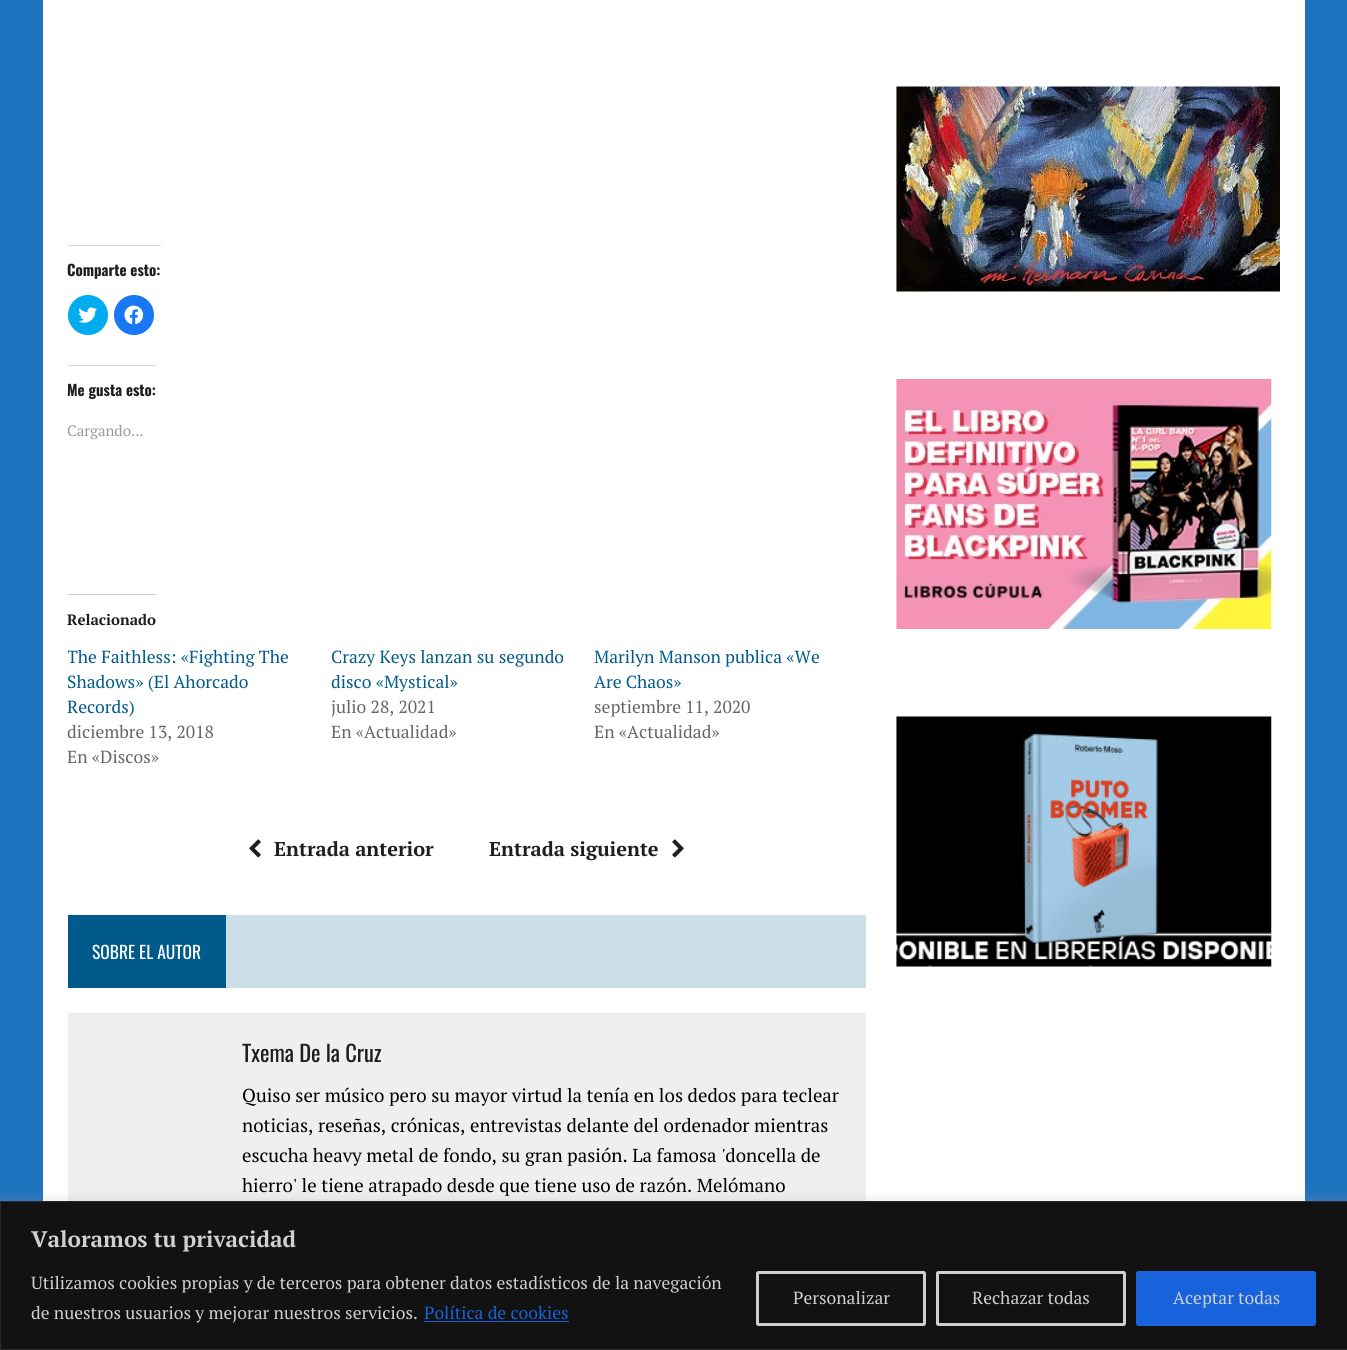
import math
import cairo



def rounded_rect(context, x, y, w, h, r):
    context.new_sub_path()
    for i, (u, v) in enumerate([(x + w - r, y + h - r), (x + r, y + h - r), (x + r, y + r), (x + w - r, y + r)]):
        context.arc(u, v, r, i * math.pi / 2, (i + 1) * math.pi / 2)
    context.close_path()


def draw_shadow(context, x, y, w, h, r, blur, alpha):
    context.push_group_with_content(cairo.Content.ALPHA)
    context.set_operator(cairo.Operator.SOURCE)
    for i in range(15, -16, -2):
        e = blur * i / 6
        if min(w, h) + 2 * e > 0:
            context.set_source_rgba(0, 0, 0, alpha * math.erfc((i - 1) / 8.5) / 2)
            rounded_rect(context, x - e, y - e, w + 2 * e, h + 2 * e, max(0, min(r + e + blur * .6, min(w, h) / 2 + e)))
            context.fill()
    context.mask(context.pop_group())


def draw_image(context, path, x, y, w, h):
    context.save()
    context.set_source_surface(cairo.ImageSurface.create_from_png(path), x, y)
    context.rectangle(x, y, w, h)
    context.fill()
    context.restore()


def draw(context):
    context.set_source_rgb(30 / 255, 115 / 255, 190 / 255)
    context.paint()
    context.set_source_rgb(1, 1, 1)
    context.rectangle(43, 0, 1262, 1201)
    context.fill()
    context.set_source_rgb(220 / 255, 220 / 255, 222 / 255)
    context.rectangle(68, 245, 93, 1)
    context.fill()
    context.set_source_rgb(0, 172 / 255, 238 / 255)
    context.arc(88, 315, 20, 0, 2 * math.pi)
    context.fill()
    draw_image(context, "images/1.png", 78, 307, 19, 16)
    context.set_source_rgb(24 / 255, 119 / 255, 242 / 255)
    context.arc(134, 315, 20, 0, 2 * math.pi)
    context.fill()
    draw_image(context, "images/2.png", 124, 305, 20, 20)
    context.set_source_rgb(220 / 255, 220 / 255, 222 / 255)
    context.rectangle(68, 365, 88, 1)
    context.fill()
    context.set_source_rgb(204 / 255, 204 / 255, 204 / 255)
    context.rectangle(68, 594, 88, 1)
    context.fill()
    draw_image(context, "images/3.png", 249, 839, 12, 19)
    draw_image(context, "images/4.png", 672, 839, 12, 19)
    context.set_source_rgb(204 / 255, 222 / 255, 232 / 255)
    context.rectangle(226, 915, 640, 73)
    context.fill()
    context.set_source_rgb(0, 90 / 255, 140 / 255)
    context.rectangle(68, 915, 158, 73)
    context.fill()
    context.set_source_rgb(239 / 255, 239 / 255, 239 / 255)
    context.rectangle(68, 1013, 798, 188)
    context.fill()
    draw_image(context, "images/5.png", 896, 86, 384, 206)
    draw_image(context, "images/6.png", 896, 379, 376, 250)
    draw_image(context, "images/7.png", 896, 716, 376, 251)
    context.set_source_rgb(172 / 255, 171 / 255, 171 / 255)
    draw_shadow(context, 0, 1200, 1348, 149, 0, 6, 0.3)
    context.set_source_rgb(18 / 255, 18 / 255, 18 / 255)
    context.rectangle(0.5, 1201.5, 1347, 148)
    context.fill_preserve()
    context.set_source_rgb(42 / 255, 42 / 255, 42 / 255)
    context.set_line_width(1)
    context.stroke()
    context.set_source_rgb(24 / 255, 99 / 255, 220 / 255)
    context.rectangle(424, 1321, 145, 1)
    context.fill()
    rounded_rect(context, 757.5, 1272.5, 167, 52, 1)
    context.set_source_rgb(208 / 255, 208 / 255, 208 / 255)
    context.set_line_width(3)
    context.stroke()
    rounded_rect(context, 937.5, 1272.5, 187, 52, 1)
    context.stroke()
    context.set_source_rgb(24 / 255, 99 / 255, 220 / 255)
    rounded_rect(context, 1137.5, 1272.5, 177, 52, 1)
    context.fill_preserve()
    context.stroke()
    context.select_font_face("Oswald", cairo.FontSlant.NORMAL, cairo.FontWeight.BOLD)
    context.set_font_size(15)
    context.set_source_rgb(31 / 255, 30 / 255, 30 / 255)
    context.move_to(67, 276)
    context.show_text("Comparte esto:")
    context.move_to(67, 396)
    context.show_text("Me gusta esto:")
    context.select_font_face("PT Serif")
    context.set_source_rgb(153 / 255, 153 / 255, 153 / 255)
    context.move_to(67, 436)
    context.show_text("Cargando...")
    context.select_font_face("PT Serif", cairo.FontSlant.NORMAL, cairo.FontWeight.BOLD)
    context.set_source_rgb(31 / 255, 30 / 255, 30 / 255)
    context.move_to(67, 625)
    context.show_text("Relacionado")
    context.save()
    context.rectangle(68, 645, 237, 75)
    context.clip()
    context.select_font_face("PT Serif")
    context.set_font_size(17.5)
    context.set_source_rgb(0, 90 / 255, 140 / 255)
    context.move_to(67, 663)
    context.show_text("The Faithless: «Fighting The")
    context.restore()
    context.select_font_face("PT Serif")
    context.set_font_size(17.5)
    context.set_source_rgb(0, 90 / 255, 140 / 255)
    context.move_to(67, 688)
    context.show_text("Shadows» (El Ahorcado")
    context.move_to(67, 713)
    context.show_text("Records)")
    context.set_source_rgb(102 / 255, 102 / 255, 102 / 255)
    context.move_to(67, 738)
    context.show_text("diciembre 13, 2018")
    context.move_to(67, 763)
    context.show_text("En «Discos»")
    context.set_source_rgb(0, 90 / 255, 140 / 255)
    context.move_to(331, 663)
    context.show_text("Crazy Keys lanzan su segundo")
    context.move_to(331, 688)
    context.show_text("disco «Mystical»")
    context.set_source_rgb(102 / 255, 102 / 255, 102 / 255)
    context.move_to(331, 713)
    context.show_text("julio 28, 2021")
    context.move_to(331, 738)
    context.show_text("En «Actualidad»")
    context.set_source_rgb(0, 90 / 255, 140 / 255)
    context.move_to(594, 663)
    context.show_text("Marilyn Manson publica «We")
    context.move_to(594, 688)
    context.show_text("Are Chaos»")
    context.set_source_rgb(102 / 255, 102 / 255, 102 / 255)
    context.move_to(594, 713)
    context.show_text("septiembre 11, 2020")
    context.move_to(594, 738)
    context.show_text("En «Actualidad»")
    context.select_font_face("PT Serif", cairo.FontSlant.NORMAL, cairo.FontWeight.BOLD)
    context.set_font_size(20)
    context.set_source_rgb(31 / 255, 30 / 255, 30 / 255)
    context.move_to(274, 856)
    context.show_text("Entrada anterior")
    context.move_to(489, 856)
    context.show_text("Entrada siguiente")
    context.select_font_face("Oswald")
    context.set_font_size(17.5)
    context.set_source_rgb(1, 1, 1)
    context.move_to(92, 959)
    context.show_text("SOBRE EL AUTOR")
    context.set_font_size(22.5)
    context.set_source_rgb(31 / 255, 30 / 255, 30 / 255)
    context.move_to(242, 1062)
    context.show_text("Txema De la Cruz")
    context.select_font_face("PT Serif")
    context.set_font_size(18.75)
    context.set_source_rgb(0, 0, 0)
    context.move_to(242, 1102)
    context.show_text("Quiso ser músico pero su mayor virtud la tenía en los dedos para teclear")
    context.move_to(242, 1132)
    context.show_text("noticias, reseñas, crónicas, entrevistas delante del ordenador mientras")
    context.move_to(242, 1162)
    context.show_text("escucha heavy metal de fondo, su gran pasión. La famosa 'doncella de")
    context.move_to(242, 1192)
    context.show_text("hierro' le tiene atrapado desde que tiene uso de razón. Melómano")
    context.select_font_face("PT Serif", cairo.FontSlant.NORMAL, cairo.FontWeight.BOLD)
    context.set_font_size(22.5)
    context.set_source_rgb(208 / 255, 208 / 255, 208 / 255)
    context.move_to(31, 1247)
    context.show_text("Valoramos tu privacidad")
    context.select_font_face("PT Serif")
    context.set_font_size(17.5)
    context.move_to(31, 1289)
    context.show_text("Utilizamos cookies propias y de terceros para obtener datos estadísticos de la navegación")
    context.move_to(31, 1319)
    context.show_text("de nuestros usuarios y mejorar nuestros servicios.")
    context.set_source_rgb(24 / 255, 99 / 255, 220 / 255)
    context.move_to(424, 1319)
    context.show_text("Política de cookies")
    context.set_source_rgb(208 / 255, 208 / 255, 208 / 255)
    context.move_to(793, 1304)
    context.show_text("Personalizar")
    context.move_to(972, 1304)
    context.show_text("Rechazar todas")
    context.move_to(1173, 1304)
    context.show_text("Aceptar todas")


surface = cairo.ImageSurface(cairo.Format.RGB24, 1347, 1350)
context = cairo.Context(surface)
options = cairo.FontOptions()
options.set_hint_metrics(cairo.HintMetrics.OFF)
options.set_hint_style(cairo.HintStyle.NONE)
context.set_font_options(options)
context.set_miter_limit(4)
draw(context)
surface.write_to_png("out.png")
